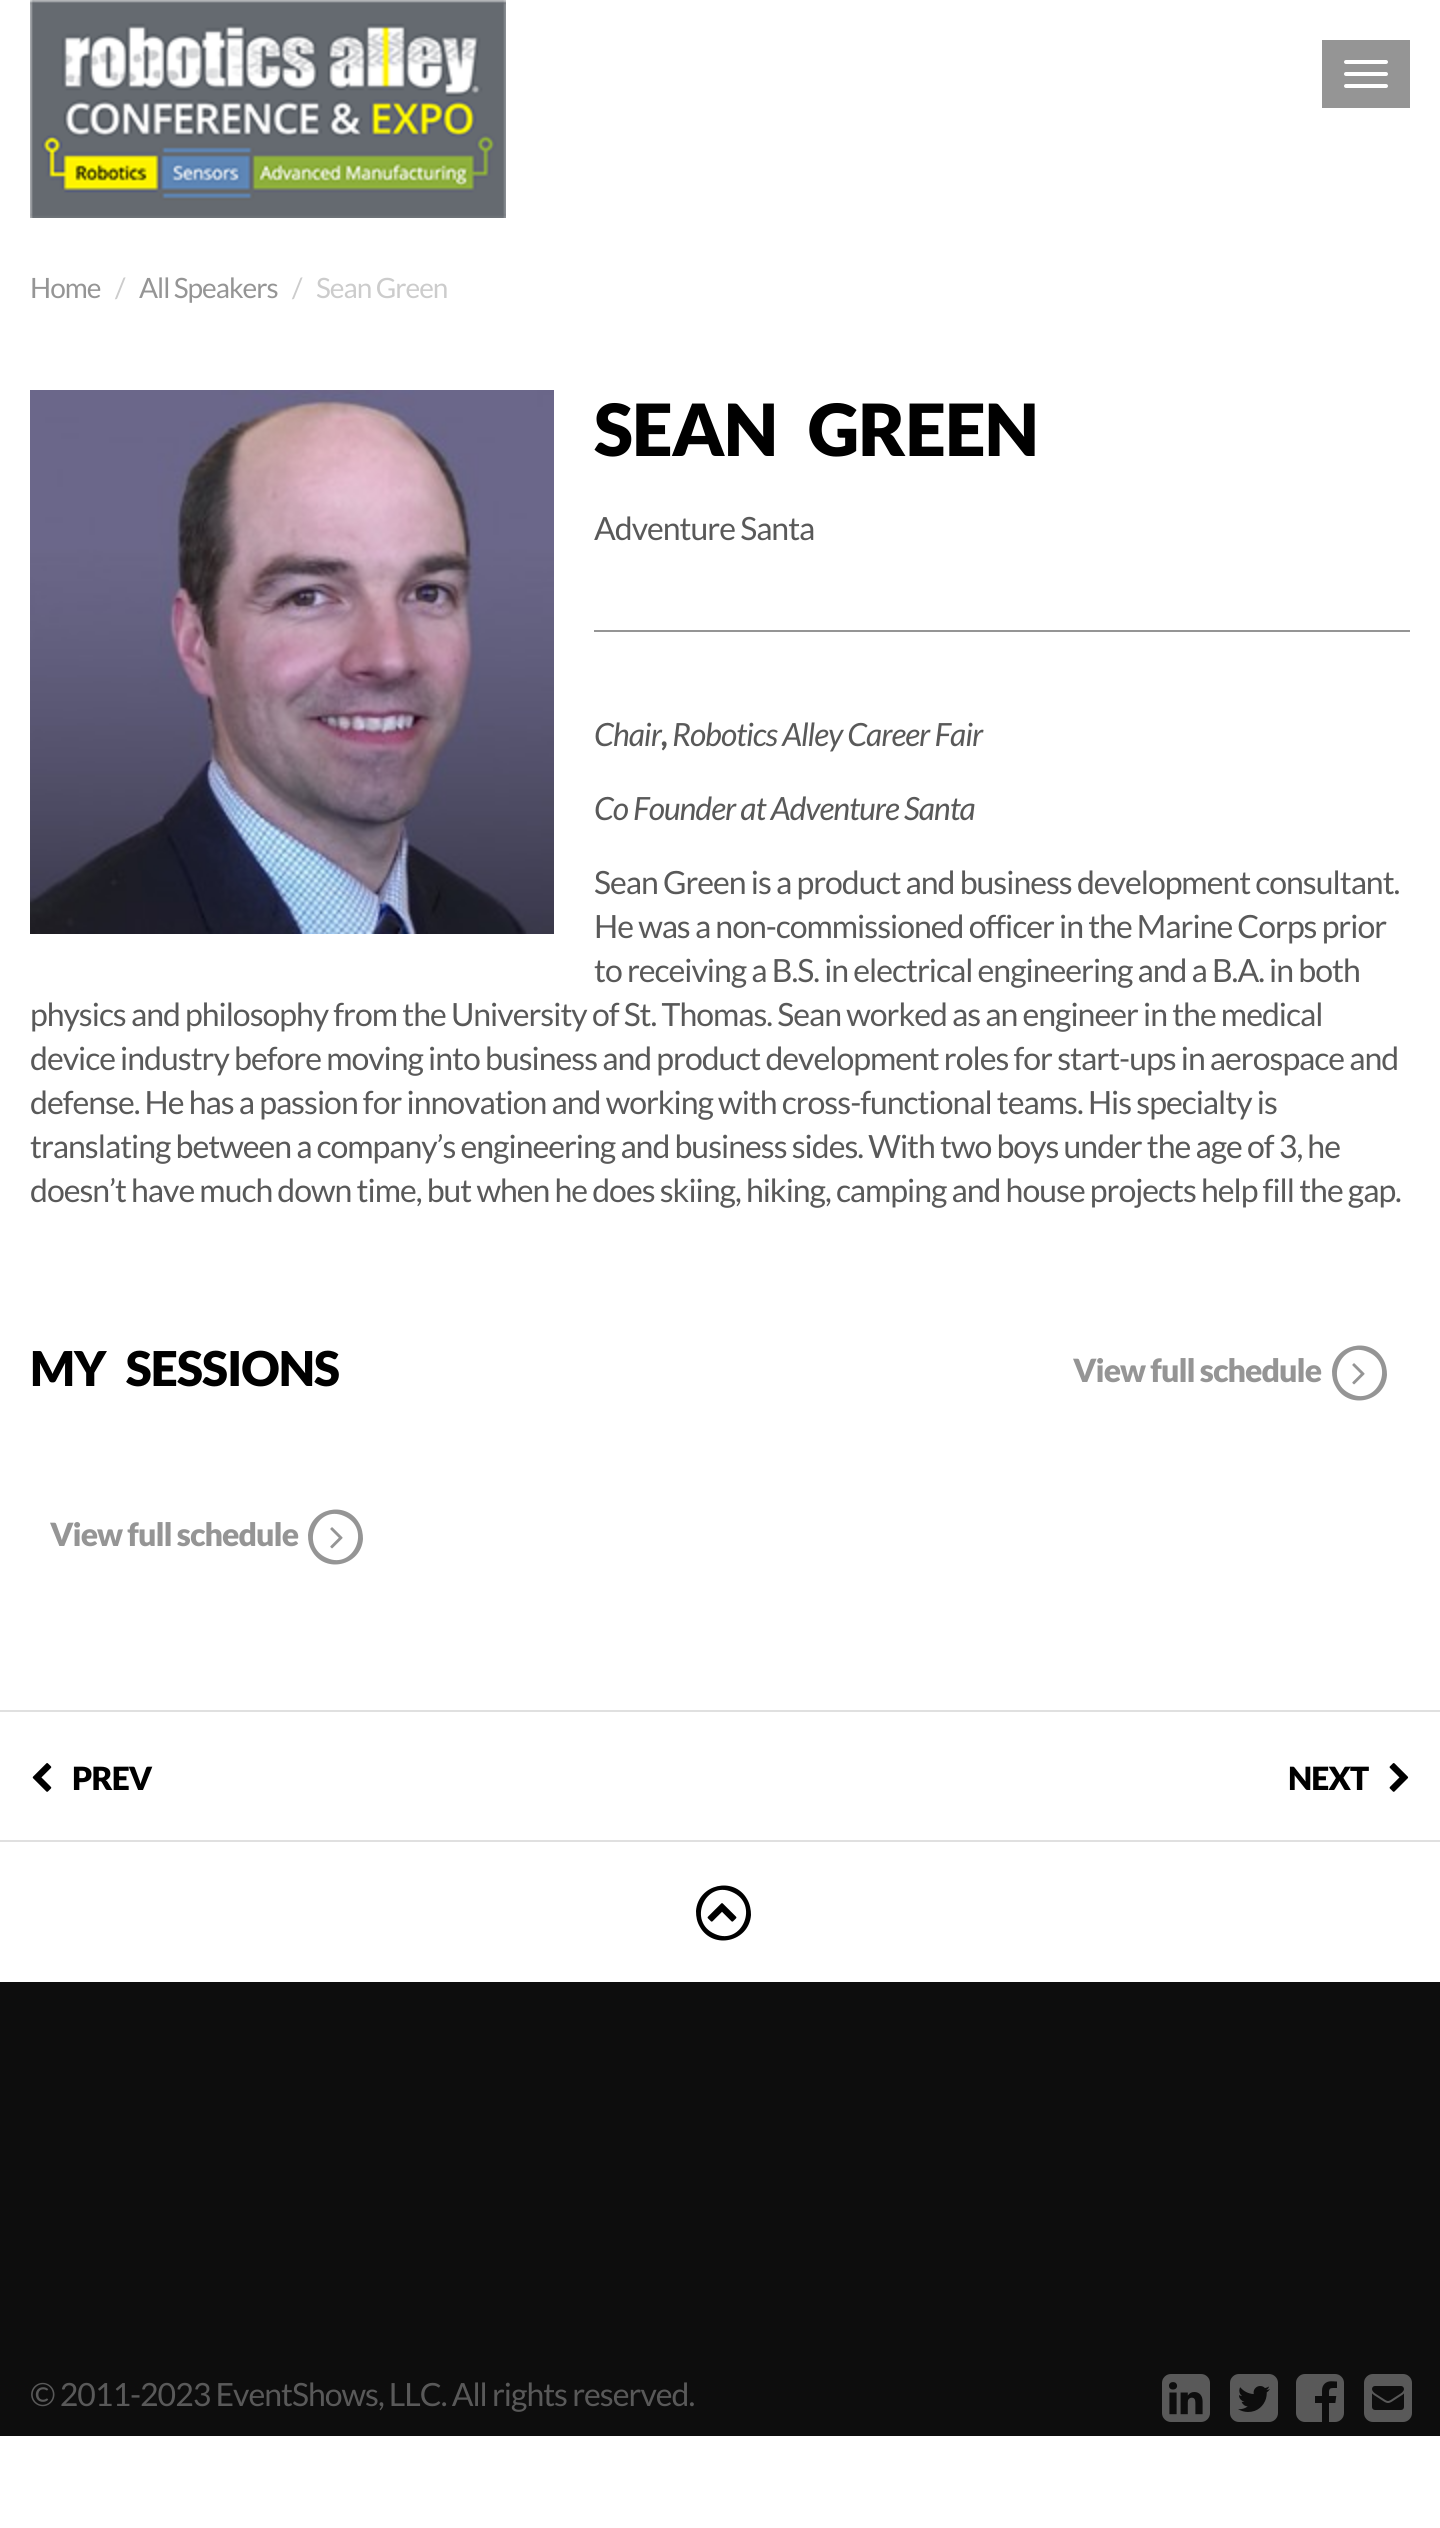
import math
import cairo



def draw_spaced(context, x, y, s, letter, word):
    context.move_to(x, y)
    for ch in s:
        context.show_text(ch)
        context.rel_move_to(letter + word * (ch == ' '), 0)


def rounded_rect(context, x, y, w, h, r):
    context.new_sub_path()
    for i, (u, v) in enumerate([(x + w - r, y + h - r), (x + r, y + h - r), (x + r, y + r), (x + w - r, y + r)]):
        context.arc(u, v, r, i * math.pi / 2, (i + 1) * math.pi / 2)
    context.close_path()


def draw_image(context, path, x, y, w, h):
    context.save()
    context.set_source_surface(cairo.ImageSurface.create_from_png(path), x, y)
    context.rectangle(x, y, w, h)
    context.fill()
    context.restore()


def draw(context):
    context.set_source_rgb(1, 1, 1)
    context.paint()
    draw_image(context, "images/1.png", 30, 0, 476, 218)
    context.set_source_rgb(149 / 255, 149 / 255, 149 / 255)
    context.rectangle(1322, 40, 88, 68)
    context.fill()
    context.set_source_rgb(1, 1, 1)
    rounded_rect(context, 1344, 60, 44, 4, 2)
    context.fill()
    rounded_rect(context, 1344, 72, 44, 4, 2)
    context.fill()
    rounded_rect(context, 1344, 84, 44, 4, 2)
    context.fill()
    draw_image(context, "images/2.png", 30, 390, 524, 544)
    context.set_source_rgb(149 / 255, 149 / 255, 149 / 255)
    context.rectangle(594, 630, 816, 2)
    context.fill()
    context.new_path()
    context.move_to(1368, 1352)
    context.curve_to(1341, 1340, 1323, 1382, 1351, 1394)
    context.curve_to(1378, 1406, 1396, 1364, 1368, 1352)
    context.close_path()
    context.move_to(1383, 1359)
    context.curve_to(1386, 1364, 1387, 1370, 1387, 1375)
    context.curve_to(1385, 1402, 1349, 1410, 1336, 1387)
    context.curve_to(1333, 1382, 1332, 1377, 1332, 1371)
    context.curve_to(1334, 1344, 1370, 1336, 1383, 1359)
    context.close_path()
    context.fill()
    draw_image(context, "images/3.png", 1352, 1363, 13, 22)
    context.new_path()
    context.move_to(344, 1516)
    context.curve_to(317, 1504, 299, 1546, 327, 1558)
    context.curve_to(354, 1570, 372, 1528, 344, 1516)
    context.close_path()
    context.move_to(359, 1523)
    context.curve_to(362, 1528, 363, 1534, 363, 1539)
    context.curve_to(361, 1566, 325, 1574, 312, 1551)
    context.curve_to(309, 1546, 308, 1541, 308, 1535)
    context.curve_to(310, 1508, 346, 1500, 359, 1523)
    context.close_path()
    context.fill()
    draw_image(context, "images/3.png", 330, 1527, 13, 22)
    context.set_source_rgb(224 / 255, 224 / 255, 224 / 255)
    context.rectangle(0, 1710, 1440, 2)
    context.fill()
    context.rectangle(0, 1840, 1440, 2)
    context.fill()
    draw_image(context, "images/4.png", 32, 1763, 20, 29)
    draw_image(context, "images/5.png", 1389, 1763, 20, 29)
    context.set_source_rgb(0, 0, 0)
    context.new_path()
    context.move_to(732, 1892)
    context.curve_to(705, 1880, 687, 1922, 715, 1934)
    context.curve_to(742, 1946, 760, 1904, 732, 1892)
    context.close_path()
    context.move_to(747, 1899)
    context.curve_to(750, 1904, 751, 1910, 751, 1915)
    context.curve_to(749, 1942, 713, 1950, 700, 1927)
    context.curve_to(697, 1922, 696, 1917, 696, 1911)
    context.curve_to(698, 1884, 734, 1876, 747, 1899)
    context.close_path()
    context.fill()
    draw_image(context, "images/6.png", 707, 1903, 30, 19)
    context.set_source_rgb(13 / 255, 13 / 255, 13 / 255)
    context.rectangle(0, 1982, 1440, 454)
    context.fill()
    draw_image(context, "images/7.png", 1162, 2374, 48, 48)
    draw_image(context, "images/8.png", 1230, 2374, 48, 48)
    draw_image(context, "images/9.png", 1296, 2374, 48, 48)
    draw_image(context, "images/10.png", 1364, 2374, 48, 48)
    context.select_font_face("Lato")
    context.set_font_size(28)
    context.set_source_rgb(149 / 255, 149 / 255, 149 / 255)
    draw_spaced(context, 30, 298, "Home", -1, 0)
    context.set_source_rgb(204 / 255, 204 / 255, 204 / 255)
    draw_spaced(context, 115, 298, "/", -1, 0)
    context.set_source_rgb(149 / 255, 149 / 255, 149 / 255)
    draw_spaced(context, 139, 298, "All Speakers", -1, 0)
    context.set_source_rgb(204 / 255, 204 / 255, 204 / 255)
    draw_spaced(context, 292, 298, "/", -1, 0)
    draw_spaced(context, 316, 298, "Sean Green", -1, 0)
    context.select_font_face("Lato Black")
    context.set_font_size(72)
    context.set_source_rgb(0, 0, 0)
    draw_spaced(context, 594, 456, "SEAN GREEN", -1, 18)
    context.select_font_face("Lato")
    context.set_font_size(32)
    context.set_source_rgb(89 / 255, 89 / 255, 89 / 255)
    draw_spaced(context, 594, 540, "Adventure Santa", -1, 0)
    context.select_font_face("Lato", cairo.FontSlant.ITALIC)
    draw_spaced(context, 594, 746, "Chair", -1, 0)
    context.select_font_face("Lato", cairo.FontSlant.ITALIC, cairo.FontWeight.BOLD)
    draw_spaced(context, 661, 746, ",", -1, 0)
    context.select_font_face("Lato", cairo.FontSlant.ITALIC)
    draw_spaced(context, 672, 746, "Robotics Alley Career Fair", -1, 0)
    draw_spaced(context, 594, 820, "Co Founder at Adventure Santa", -1, 0)
    context.select_font_face("Lato")
    draw_spaced(context, 594, 894, "Sean Green is a product and business development consultant.", -1, 0)
    draw_spaced(context, 594, 938, "He was a non-commissioned officer in the Marine Corps prior", -1, 0)
    draw_spaced(context, 594, 982, "to receiving a B.S. in electrical engineering and a B.A. in both", -1, 0)
    draw_spaced(context, 30, 1026, "physics and philosophy from the University of St. Thomas. Sean worked as an engineer in the medical", -1, 0)
    draw_spaced(context, 30, 1070, "device industry before moving into business and product development roles for start-ups in aerospace and", -1, 0)
    draw_spaced(context, 30, 1114, "defense. He has a passion for innovation and working with cross-functional teams. His specialty is", -1, 0)
    draw_spaced(context, 30, 1158, "translating between a company’s engineering and business sides. With two boys under the age of 3, he", -1, 0)
    draw_spaced(context, 30, 1202, "doesn’t have much down time, but when he does skiing, hiking, camping and house projects help fill the gap.", -1, 0)
    context.select_font_face("Lato Black")
    context.set_font_size(48)
    context.set_source_rgb(0, 0, 0)
    draw_spaced(context, 30, 1386, "MY SESSIONS", -1, 12)
    context.set_font_size(32)
    context.set_source_rgb(149 / 255, 149 / 255, 149 / 255)
    draw_spaced(context, 1073, 1382, "View full schedule", -1, 0)
    draw_spaced(context, 50, 1546, "View full schedule", -1, 0)
    context.set_source_rgb(0, 0, 0)
    draw_spaced(context, 72, 1790, "PREV", -1, 0)
    draw_spaced(context, 1288, 1790, "NEXT", -1, 0)
    context.select_font_face("Lato")
    context.set_source_rgb(89 / 255, 89 / 255, 89 / 255)
    draw_spaced(context, 30, 2406, "© 2011-2023 EventShows, LLC. All rights reserved.", -1, 0)


surface = cairo.ImageSurface(cairo.Format.RGB24, 1440, 2528)
context = cairo.Context(surface)
options = cairo.FontOptions()
options.set_hint_metrics(cairo.HintMetrics.OFF)
options.set_hint_style(cairo.HintStyle.NONE)
context.set_font_options(options)
context.set_miter_limit(4)
draw(context)
surface.write_to_png("out.png")
